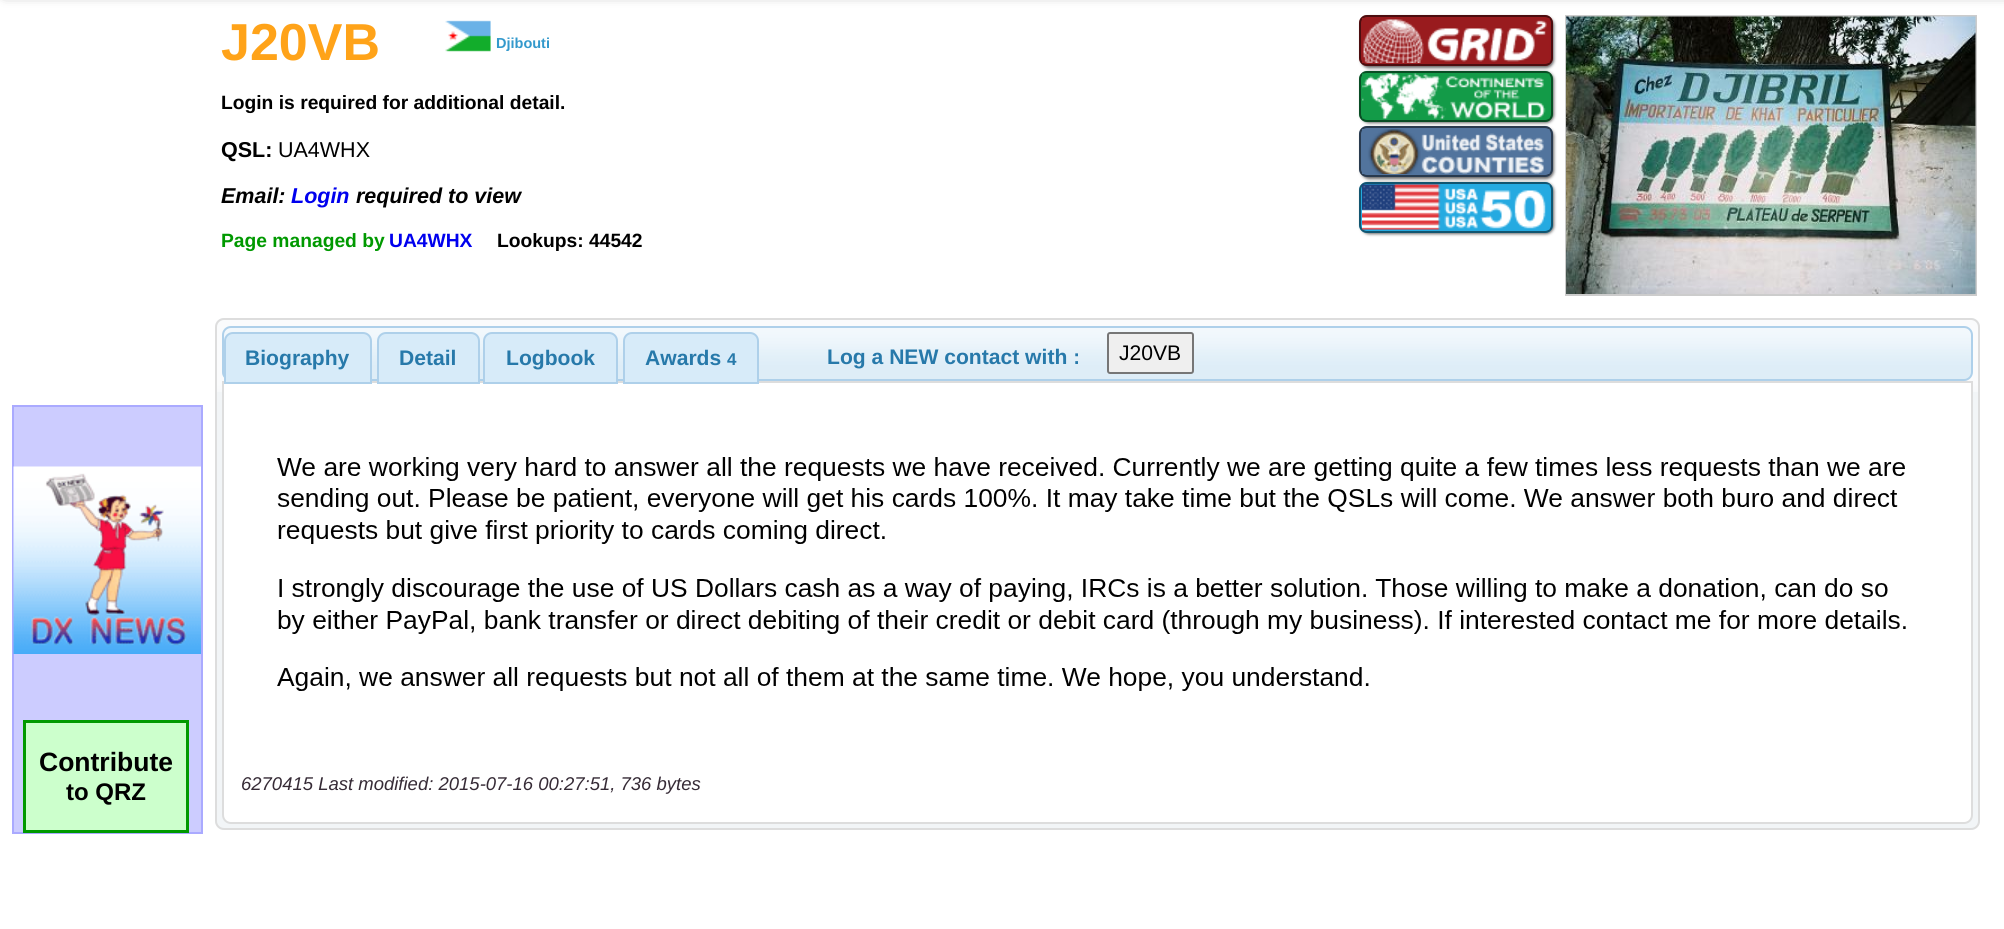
import math
import cairo



def rounded_rect(context, x, y, w, h, r):
    context.new_sub_path()
    for i, (u, v) in enumerate([(x + w - r, y + h - r), (x + r, y + h - r), (x + r, y + r), (x + w - r, y + r)]):
        context.arc(u, v, r, i * math.pi / 2, (i + 1) * math.pi / 2)
    context.close_path()


def draw_shadow(context, x, y, w, h, r, blur, alpha):
    context.push_group_with_content(cairo.Content.ALPHA)
    context.set_operator(cairo.Operator.SOURCE)
    for i in range(15, -16, -2):
        e = blur * i / 6
        if min(w, h) + 2 * e > 0:
            context.set_source_rgba(0, 0, 0, alpha * math.erfc((i - 1) / 8.5) / 2)
            rounded_rect(context, x - e, y - e, w + 2 * e, h + 2 * e, max(0, min(r + e + blur * .6, min(w, h) / 2 + e)))
            context.fill()
    context.mask(context.pop_group())


def draw_image(context, path, x, y, w, h):
    context.save()
    context.set_source_surface(cairo.ImageSurface.create_from_png(path), x, y)
    context.rectangle(x, y, w, h)
    context.fill()
    context.restore()


def draw(context):
    context.set_source_rgb(1, 1, 1)
    context.paint()
    context.set_source_rgb(102 / 255, 102 / 255, 102 / 255)
    draw_shadow(context, 5, -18, 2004, 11, 0, 6, 1)
    context.set_source_rgb(204 / 255, 204 / 255, 1)
    context.rectangle(13, 406, 189, 427)
    context.fill_preserve()
    context.set_source_rgb(170 / 255, 170 / 255, 1)
    context.stroke()
    draw_image(context, "images/1.png", 13, 466, 188, 188)
    context.set_source_rgb(204 / 255, 1, 204 / 255)
    context.rectangle(24.5, 721.5, 163, 110)
    context.fill_preserve()
    context.set_source_rgb(0, 153 / 255, 0)
    context.set_line_width(3)
    context.stroke()
    draw_image(context, "images/2.png", 445, 20, 46, 32)
    context.set_source_rgb(102 / 255, 102 / 255, 102 / 255)
    draw_shadow(context, 1361, 17, 193, 51, 8, 1.5, 1)
    context.set_source_rgb(153 / 255, 27 / 255, 30 / 255)
    rounded_rect(context, 1359, 15, 194, 51, 8)
    context.fill()
    rounded_rect(context, 1360, 16, 192, 49, 7)
    context.set_source_rgba(0, 0, 0, 0.5)
    context.set_line_width(2)
    context.stroke()
    draw_image(context, "images/3.png", 1362, 18, 188, 45)
    context.set_source_rgb(102 / 255, 102 / 255, 102 / 255)
    draw_shadow(context, 1361, 72, 193, 51, 8, 1.5, 1)
    context.set_source_rgb(19 / 255, 155 / 255, 72 / 255)
    rounded_rect(context, 1359, 71, 194, 51, 8)
    context.fill()
    rounded_rect(context, 1360, 72, 192, 49, 7)
    context.set_source_rgba(0, 0, 0, 0.5)
    context.stroke()
    draw_image(context, "images/4.png", 1362, 73, 188, 46)
    context.set_source_rgb(102 / 255, 102 / 255, 102 / 255)
    draw_shadow(context, 1361, 128, 193, 51, 8, 1.5, 1)
    context.set_source_rgb(82 / 255, 116 / 255, 157 / 255)
    rounded_rect(context, 1359, 126, 194, 51, 8)
    context.fill()
    rounded_rect(context, 1360, 127, 192, 49, 7)
    context.set_source_rgba(0, 0, 0, 0.5)
    context.stroke()
    draw_image(context, "images/5.png", 1362, 129, 188, 45)
    context.set_source_rgb(102 / 255, 102 / 255, 102 / 255)
    draw_shadow(context, 1361, 183, 193, 51, 8, 1.5, 1)
    context.set_source_rgb(37 / 255, 170 / 255, 225 / 255)
    rounded_rect(context, 1359, 182, 194, 51, 8)
    context.fill()
    rounded_rect(context, 1360, 183, 192, 49, 7)
    context.set_source_rgba(0, 0, 0, 0.5)
    context.stroke()
    draw_image(context, "images/6.png", 1362, 184, 188, 46)
    context.rectangle(1566, 16, 410, 279)
    context.set_source_rgb(204 / 255, 204 / 255, 204 / 255)
    context.stroke()
    draw_image(context, "images/7.png", 1566, 16, 410, 278)
    context.set_source_rgb(242 / 255, 245 / 255, 247 / 255)
    rounded_rect(context, 215, 318, 1765, 512, 9)
    context.fill()
    draw_image(context, "images/8.png", 215, 319, 1765, 73)
    rounded_rect(context, 216, 319, 1763, 510, 8)
    context.set_source_rgb(221 / 255, 221 / 255, 221 / 255)
    context.stroke()
    draw_image(context, "images/9.png", 222, 326, 1751, 55)
    rounded_rect(context, 223, 327, 1749, 53, 8)
    context.set_source_rgb(174 / 255, 208 / 255, 234 / 255)
    context.stroke()
    context.set_source_rgb(1, 1, 1)
    context.new_path()
    context.move_to(223, 382)
    context.line_to(1972, 382)
    context.line_to(1972, 815)
    context.curve_to(1972, 819.5, 1968.5, 823, 1964, 823)
    context.line_to(231, 823)
    context.curve_to(226.5, 823, 223, 819.5, 223, 815)
    context.close_path()
    context.fill_preserve()
    context.set_source_rgb(221 / 255, 221 / 255, 221 / 255)
    context.stroke()
    context.set_source_rgb(215 / 255, 235 / 255, 249 / 255)
    context.new_path()
    context.move_to(233, 333)
    context.line_to(363, 333)
    context.curve_to(367.5, 333, 371, 336.5, 371, 341)
    context.line_to(371, 383)
    context.line_to(225, 383)
    context.line_to(225, 341)
    context.curve_to(225, 336.5, 228.5, 333, 233, 333)
    context.close_path()
    context.fill_preserve()
    context.set_source_rgb(174 / 255, 208 / 255, 234 / 255)
    context.stroke()
    context.set_source_rgb(215 / 255, 235 / 255, 249 / 255)
    context.new_path()
    context.move_to(386, 333)
    context.line_to(471, 333)
    context.curve_to(475.5, 333, 479, 336.5, 479, 341)
    context.line_to(479, 383)
    context.line_to(378, 383)
    context.line_to(378, 341)
    context.curve_to(378, 336.5, 381.5, 333, 386, 333)
    context.close_path()
    context.fill_preserve()
    context.set_source_rgb(174 / 255, 208 / 255, 234 / 255)
    context.stroke()
    context.set_source_rgb(215 / 255, 235 / 255, 249 / 255)
    context.new_path()
    context.move_to(492, 333)
    context.line_to(609, 333)
    context.curve_to(613.5, 333, 617, 336.5, 617, 341)
    context.line_to(617, 383)
    context.line_to(484, 383)
    context.line_to(484, 341)
    context.curve_to(484, 336.5, 487.5, 333, 492, 333)
    context.close_path()
    context.fill_preserve()
    context.set_source_rgb(174 / 255, 208 / 255, 234 / 255)
    context.stroke()
    context.set_source_rgb(215 / 255, 235 / 255, 249 / 255)
    context.new_path()
    context.move_to(632, 333)
    context.line_to(750, 333)
    context.curve_to(754.5, 333, 758, 336.5, 758, 341)
    context.line_to(758, 383)
    context.line_to(624, 383)
    context.line_to(624, 341)
    context.curve_to(624, 336.5, 627.5, 333, 632, 333)
    context.close_path()
    context.fill_preserve()
    context.set_source_rgb(174 / 255, 208 / 255, 234 / 255)
    context.stroke()
    context.set_source_rgb(239 / 255, 239 / 255, 239 / 255)
    rounded_rect(context, 1108, 333, 85, 40, 2)
    context.fill_preserve()
    context.set_source_rgb(118 / 255, 118 / 255, 118 / 255)
    context.stroke()
    draw_image(context, "images/10.png", 277, 457, 1629, 234)
    context.select_font_face("Liberation Sans", cairo.FontSlant.NORMAL, cairo.FontWeight.BOLD)
    context.set_font_size(26.5)
    context.set_source_rgb(0, 0, 0)
    context.move_to(39, 771)
    context.show_text("Contribute")
    context.set_font_size(24)
    context.move_to(66, 800)
    context.show_text("to QRZ")
    context.set_font_size(52)
    context.set_source_rgb(1, 163 / 255, 25 / 255)
    context.move_to(221, 60)
    context.show_text("J20VB")
    context.set_font_size(14.5)
    context.set_source_rgb(51 / 255, 153 / 255, 204 / 255)
    context.move_to(496, 48)
    context.show_text("Djibouti")
    context.set_font_size(19.25)
    context.set_source_rgb(0, 0, 0)
    context.move_to(221, 109)
    context.show_text("Login is required for additional detail.")
    context.set_font_size(21.5)
    context.move_to(221, 157)
    context.show_text("QSL:")
    context.select_font_face("Liberation Sans")
    context.move_to(278, 157)
    context.show_text("UA4WHX")
    context.select_font_face("Liberation Sans", cairo.FontSlant.ITALIC, cairo.FontWeight.BOLD)
    context.move_to(221, 203)
    context.show_text("Email:")
    context.set_source_rgb(0, 0, 238 / 255)
    context.move_to(291, 203)
    context.show_text("Login")
    context.set_source_rgb(0, 0, 0)
    context.move_to(356, 203)
    context.show_text("required to view")
    context.select_font_face("Liberation Sans", cairo.FontSlant.NORMAL, cairo.FontWeight.BOLD)
    context.set_font_size(19.25)
    context.set_source_rgb(0, 153 / 255, 0)
    context.move_to(221, 247)
    context.show_text("Page managed by")
    context.set_source_rgb(0, 0, 238 / 255)
    context.move_to(389, 247)
    context.show_text("UA4WHX")
    context.set_source_rgb(0, 0, 0)
    context.move_to(497, 247)
    context.show_text("Lookups: 44542")
    context.set_font_size(21.1)
    context.set_source_rgb(39 / 255, 121 / 255, 170 / 255)
    context.move_to(245, 365)
    context.show_text("Biography")
    context.move_to(399, 365)
    context.show_text("Detail")
    context.move_to(506, 365)
    context.show_text("Logbook")
    context.move_to(645, 365)
    context.show_text("Awards")
    context.set_font_size(17)
    context.move_to(727, 365)
    context.show_text("4")
    context.set_font_size(21.1)
    context.move_to(827, 364)
    context.show_text("Log a NEW contact with :")
    context.select_font_face("Liberation Sans")
    context.set_source_rgb(0, 0, 0)
    context.move_to(1119, 360)
    context.show_text("J20VB")
    context.select_font_face("Liberation Sans", cairo.FontSlant.ITALIC)
    context.set_font_size(18.5)
    context.set_source_rgb(54 / 255, 43 / 255, 54 / 255)
    context.move_to(241, 790)
    context.show_text("6270415 Last modified: 2015-07-16 00:27:51, 736 bytes")


surface = cairo.ImageSurface(cairo.Format.RGB24, 2004, 929)
context = cairo.Context(surface)
options = cairo.FontOptions()
options.set_hint_metrics(cairo.HintMetrics.OFF)
options.set_hint_style(cairo.HintStyle.NONE)
context.set_font_options(options)
context.set_miter_limit(4)
draw(context)
surface.write_to_png("out.png")
